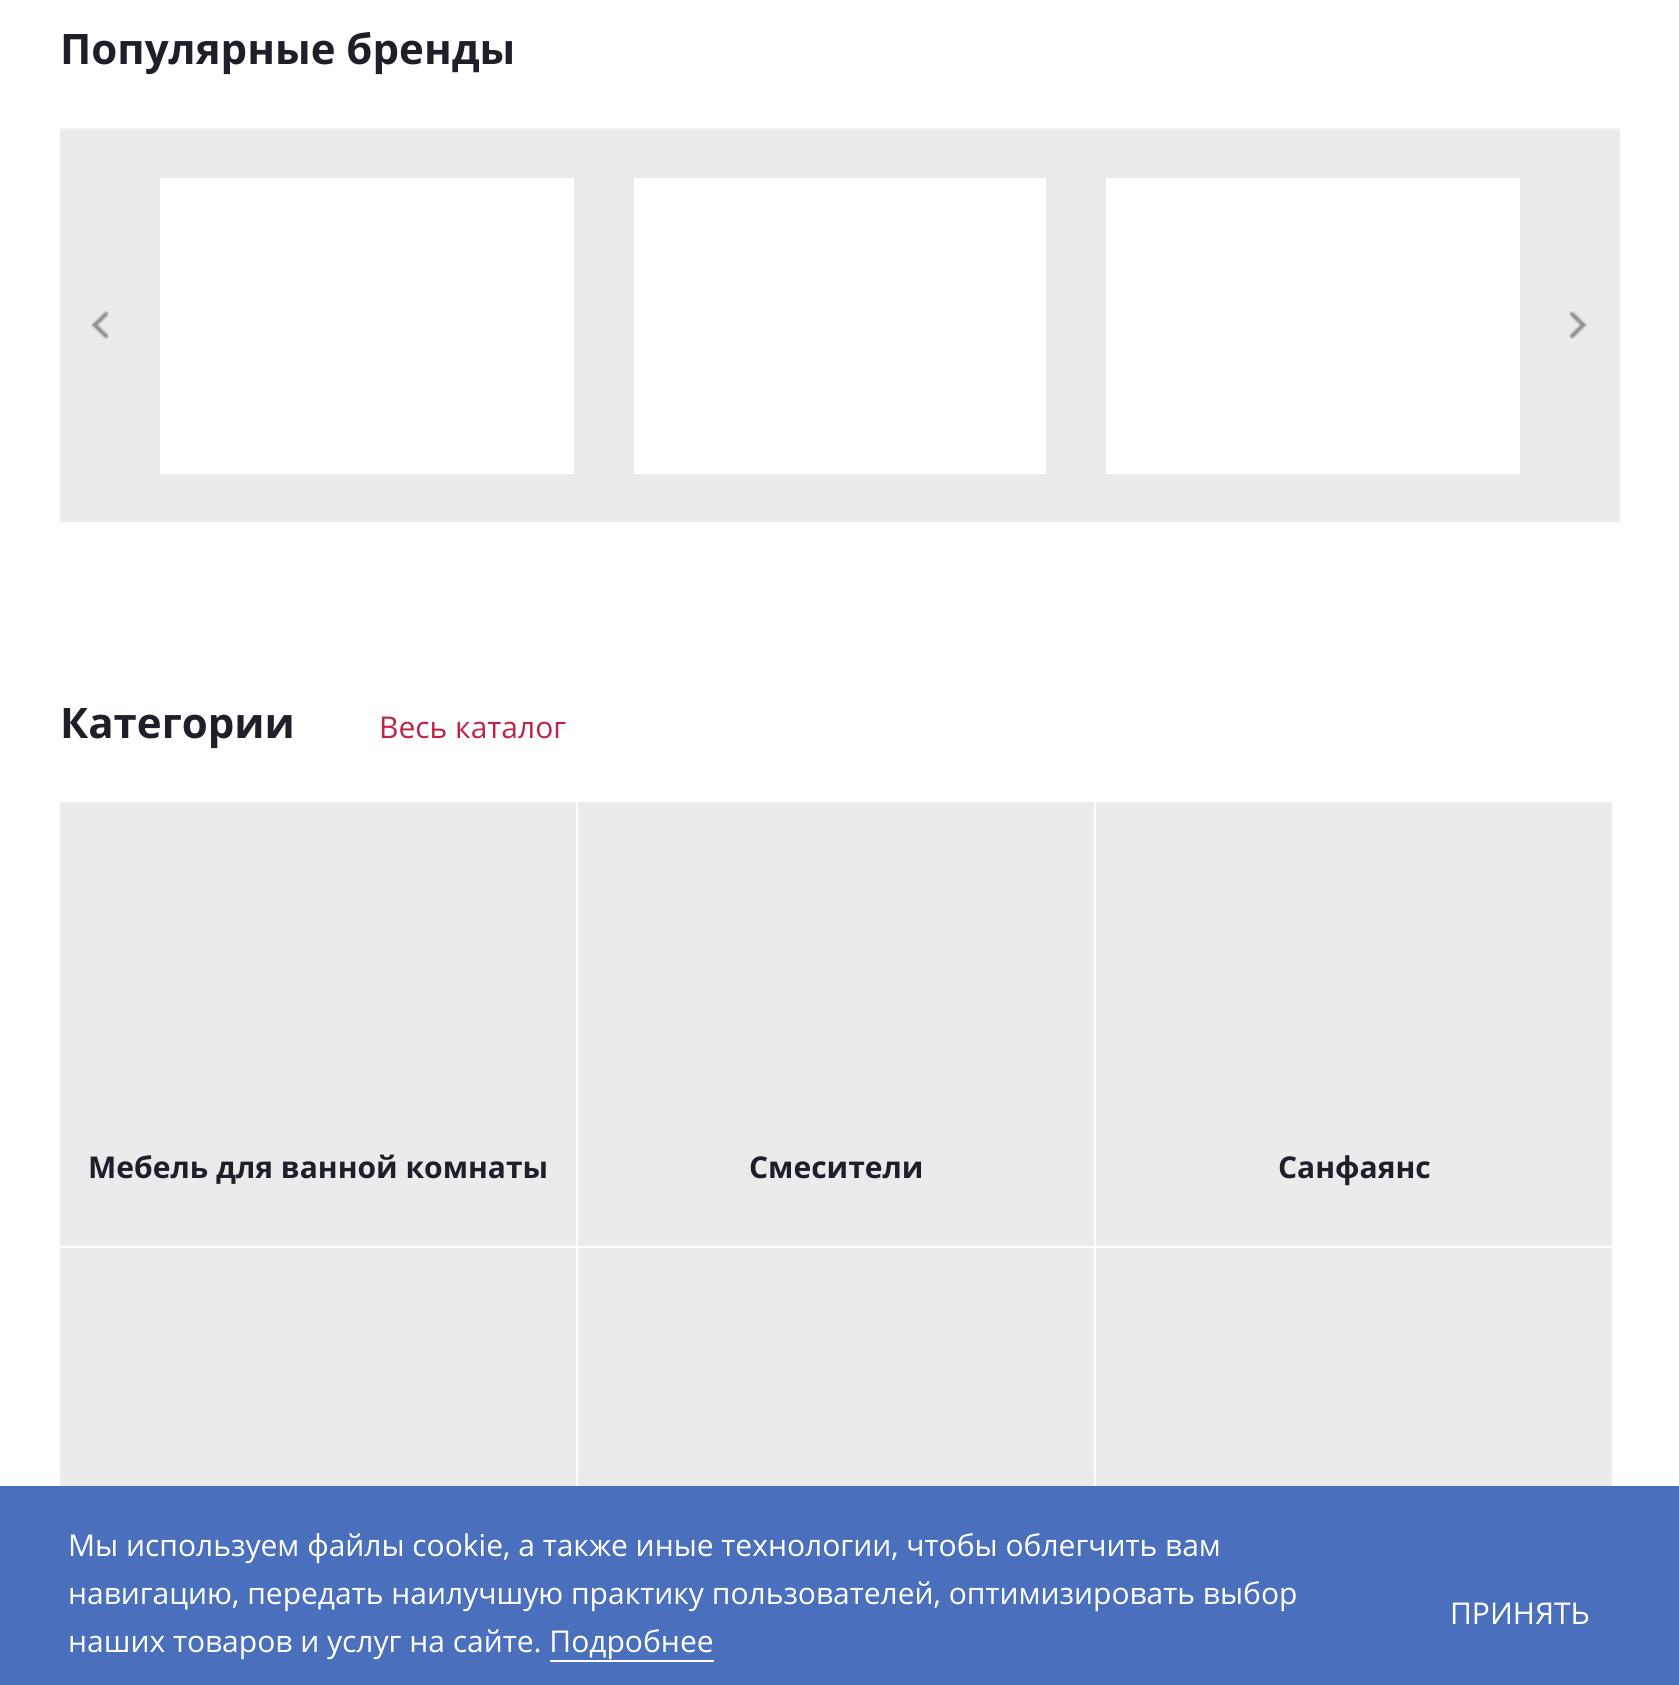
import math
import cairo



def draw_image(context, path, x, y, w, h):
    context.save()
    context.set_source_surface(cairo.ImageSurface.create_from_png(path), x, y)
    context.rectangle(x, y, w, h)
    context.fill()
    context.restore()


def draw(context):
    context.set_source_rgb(1, 1, 1)
    context.paint()
    context.set_source_rgb(235 / 255, 235 / 255, 235 / 255)
    context.rectangle(60, 130, 1560, 392)
    context.fill()
    context.set_source_rgb(242 / 255, 242 / 255, 242 / 255)
    context.rectangle(60, 128, 1560, 2)
    context.fill()
    context.set_source_rgb(1, 1, 1)
    context.rectangle(160, 178, 414, 296)
    context.fill()
    context.rectangle(634, 178, 412, 296)
    context.fill()
    context.rectangle(1106, 178, 414, 296)
    context.fill()
    draw_image(context, "images/1.png", 91, 311, 18, 28)
    draw_image(context, "images/2.png", 1569, 311, 18, 28)
    context.set_source_rgb(235 / 255, 235 / 255, 235 / 255)
    context.rectangle(60, 802, 516, 444)
    context.fill()
    context.rectangle(578, 802, 516, 444)
    context.fill()
    context.rectangle(1096, 802, 516, 444)
    context.fill()
    context.rectangle(60, 1248, 516, 238)
    context.fill()
    context.rectangle(578, 1248, 516, 238)
    context.fill()
    context.rectangle(1096, 1248, 516, 238)
    context.fill()
    context.set_source_rgb(74 / 255, 111 / 255, 189 / 255)
    context.rectangle(0, 1486, 1679, 199)
    context.fill()
    context.set_source_rgb(1, 1, 1)
    context.rectangle(550, 1660, 164, 2)
    context.fill()
    context.select_font_face("Open Sans", cairo.FontSlant.NORMAL, cairo.FontWeight.BOLD)
    context.set_font_size(42)
    context.set_source_rgb(29 / 255, 32 / 255, 41 / 255)
    context.move_to(60, 64)
    context.show_text("Популярные бренды")
    context.move_to(60, 738)
    context.show_text("Категории")
    context.select_font_face("Open Sans")
    context.set_font_size(30)
    context.set_source_rgb(188 / 255, 37 / 255, 69 / 255)
    context.move_to(379, 738)
    context.show_text("Весь каталог")
    context.select_font_face("Open Sans", cairo.FontSlant.NORMAL, cairo.FontWeight.BOLD)
    context.set_source_rgb(29 / 255, 32 / 255, 41 / 255)
    context.move_to(88, 1178)
    context.show_text("Мебель для ванной комнаты")
    context.move_to(749, 1178)
    context.show_text("Смесители")
    context.move_to(1278, 1178)
    context.show_text("Санфаянс")
    context.select_font_face("Open Sans")
    context.set_source_rgb(1, 1, 1)
    context.move_to(68, 1556)
    context.show_text("Мы используем файлы cookie, а также иные технологии, чтобы облегчить вам")
    context.move_to(68, 1604)
    context.show_text("навигацию, передать наилучшую практику пользователей, оптимизировать выбор")
    context.move_to(68, 1652)
    context.show_text("наших товаров и услуг на сайте. Подробнее")
    context.move_to(1450, 1624)
    context.show_text("ПРИНЯТЬ")


surface = cairo.ImageSurface(cairo.Format.RGB24, 1679, 1685)
context = cairo.Context(surface)
options = cairo.FontOptions()
options.set_hint_metrics(cairo.HintMetrics.OFF)
options.set_hint_style(cairo.HintStyle.NONE)
context.set_font_options(options)
context.set_miter_limit(4)
draw(context)
surface.write_to_png("out.png")
